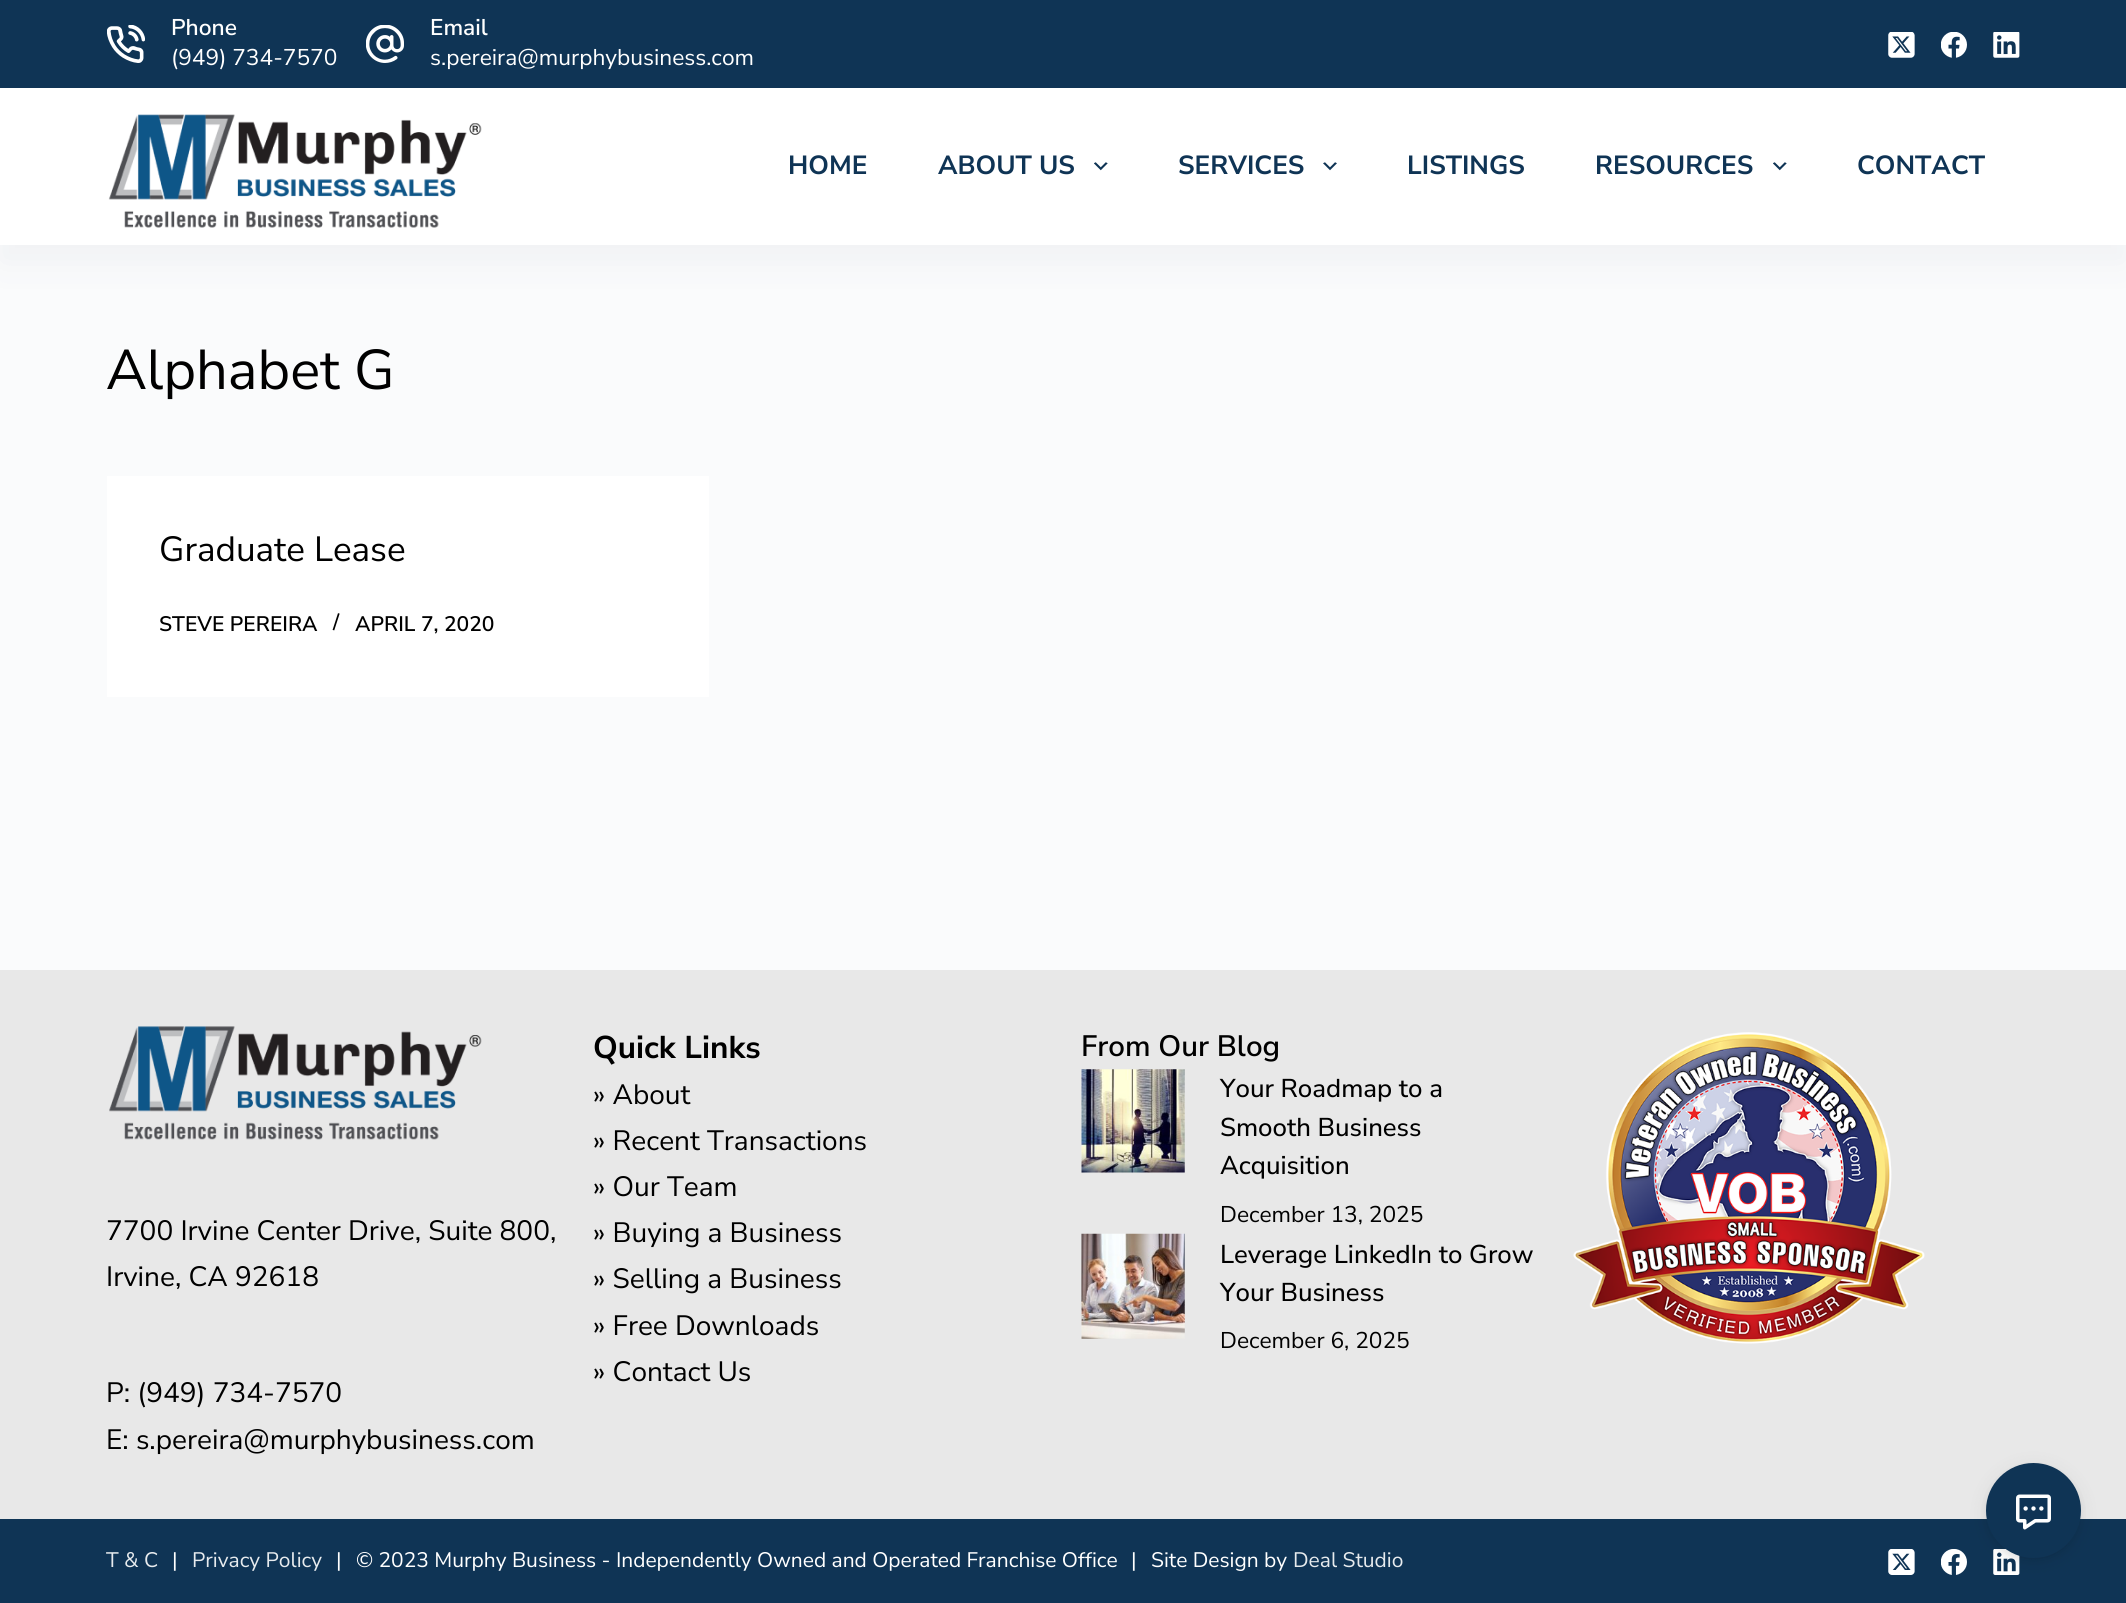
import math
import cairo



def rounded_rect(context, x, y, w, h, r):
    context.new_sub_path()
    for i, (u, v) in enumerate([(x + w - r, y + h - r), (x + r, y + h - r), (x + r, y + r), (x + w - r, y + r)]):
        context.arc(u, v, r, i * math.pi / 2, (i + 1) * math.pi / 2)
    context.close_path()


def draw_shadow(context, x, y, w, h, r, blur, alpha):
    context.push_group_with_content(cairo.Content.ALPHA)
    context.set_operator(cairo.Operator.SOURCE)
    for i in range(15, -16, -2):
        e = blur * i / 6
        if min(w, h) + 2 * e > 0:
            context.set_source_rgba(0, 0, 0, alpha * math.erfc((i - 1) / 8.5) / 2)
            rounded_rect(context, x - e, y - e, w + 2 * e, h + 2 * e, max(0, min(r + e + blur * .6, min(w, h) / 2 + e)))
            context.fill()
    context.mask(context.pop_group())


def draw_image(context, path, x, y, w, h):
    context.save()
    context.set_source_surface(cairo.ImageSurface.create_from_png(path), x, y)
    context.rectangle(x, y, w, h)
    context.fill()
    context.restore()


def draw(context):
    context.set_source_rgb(250 / 255, 251 / 255, 252 / 255)
    context.paint()
    context.set_source_rgb(44 / 255, 62 / 255, 80 / 255)
    draw_shadow(context, 0, 105, 2126, 158, 0, 17.5, 0.05)
    context.set_source_rgb(15 / 255, 52 / 255, 85 / 255)
    context.rectangle(0, 0, 2126, 88)
    context.fill()
    draw_image(context, "images/1.png", 107, 25, 38, 38)
    draw_image(context, "images/2.png", 366, 25, 38, 38)
    draw_image(context, "images/3.png", 1888, 32, 27, 26)
    draw_image(context, "images/4.png", 1941, 32, 26, 26)
    draw_image(context, "images/5.png", 1993, 32, 27, 26)
    context.set_source_rgb(1, 1, 1)
    context.rectangle(0, 88, 2126, 157)
    context.fill()
    draw_image(context, "images/6.png", 108, 114, 374, 114)
    draw_image(context, "images/7.png", 1094, 162, 14, 9)
    draw_image(context, "images/8.png", 1323, 162, 14, 9)
    draw_image(context, "images/7.png", 1773, 162, 14, 9)
    context.rectangle(107, 476, 602, 221)
    context.fill()
    context.set_source_rgb(232 / 255, 232 / 255, 232 / 255)
    context.rectangle(0, 970, 2126, 549)
    context.fill()
    draw_image(context, "images/9.png", 109, 1026, 373, 114)
    draw_image(context, "images/10.png", 1081, 1069, 104, 104)
    draw_image(context, "images/11.png", 1081, 1233, 104, 106)
    draw_image(context, "images/12.png", 1573, 1032, 352, 312)
    context.set_source_rgb(15 / 255, 52 / 255, 85 / 255)
    context.rectangle(0, 1519, 2126, 84)
    context.fill()
    draw_image(context, "images/13.png", 1888, 1549, 27, 26)
    draw_image(context, "images/14.png", 1941, 1549, 26, 26)
    draw_image(context, "images/15.png", 1993, 1549, 27, 26)
    context.set_source_rgb(0, 0, 0)
    draw_shadow(context, 1986, 1467, 95, 94, 47, 3.5, 0.08)
    draw_shadow(context, 1986, 1467, 95, 94, 47, 10.5, 0.06)
    context.set_source_rgb(15 / 255, 52 / 255, 85 / 255)
    context.arc(2033.5, 1510.5, 47.5, 0, 2 * math.pi)
    context.fill()
    draw_image(context, "images/16.png", 2016, 1494, 35, 36)
    context.select_font_face("Nunito Sans SemiBold")
    context.set_font_size(22.75)
    context.set_source_rgb(1, 1, 1)
    context.move_to(171, 35)
    context.show_text("Phone")
    context.select_font_face("Nunito Sans")
    context.move_to(171, 65)
    context.show_text("(949) 734-7570")
    context.select_font_face("Nunito Sans SemiBold")
    context.move_to(430, 35)
    context.show_text("Email")
    context.select_font_face("Nunito Sans")
    context.move_to(430, 65)
    context.show_text("s.pereira@murphybusiness.com")
    context.select_font_face("Nunito Sans", cairo.FontSlant.NORMAL, cairo.FontWeight.BOLD)
    context.set_font_size(26.25)
    context.set_source_rgb(15 / 255, 52 / 255, 85 / 255)
    context.move_to(788, 174)
    context.show_text("HOME")
    context.move_to(938, 174)
    context.show_text("ABOUT US")
    context.move_to(1178, 174)
    context.show_text("SERVICES")
    context.move_to(1407, 174)
    context.show_text("LISTINGS")
    context.move_to(1595, 174)
    context.show_text("RESOURCES")
    context.move_to(1857, 174)
    context.show_text("CONTACT")
    context.select_font_face("Nunito Sans")
    context.set_font_size(56)
    context.set_source_rgb(0, 0, 0)
    context.move_to(106, 389)
    context.show_text("Alphabet G")
    context.set_font_size(35)
    context.move_to(159, 561)
    context.show_text("Graduate Lease")
    context.select_font_face("Nunito Sans SemiBold")
    context.set_font_size(21)
    context.move_to(159, 631)
    context.show_text("STEVE PEREIRA")
    context.move_to(333, 629)
    context.show_text("/")
    context.move_to(355, 631)
    context.show_text("APRIL 7, 2020")
    context.select_font_face("Nunito Sans")
    context.set_font_size(28)
    context.move_to(106, 1240)
    context.show_text("7700 Irvine Center Drive, Suite 800,")
    context.move_to(106, 1286)
    context.show_text("Irvine, CA 92618")
    context.move_to(106, 1402)
    context.show_text("P: (949) 734-7570")
    context.move_to(106, 1449)
    context.show_text("E: s.pereira@murphybusiness.com")
    context.select_font_face("Nunito Sans", cairo.FontSlant.NORMAL, cairo.FontWeight.BOLD)
    context.set_font_size(31.5)
    context.move_to(593, 1058)
    context.show_text("Quick Links")
    context.select_font_face("Nunito Sans")
    context.set_font_size(28)
    context.move_to(593, 1104)
    context.show_text("» About")
    context.move_to(593, 1150)
    context.show_text("» Recent Transactions")
    context.move_to(593, 1196)
    context.show_text("» Our Team")
    context.move_to(593, 1242)
    context.show_text("» Buying a Business")
    context.move_to(593, 1288)
    context.show_text("» Selling a Business")
    context.move_to(593, 1335)
    context.show_text("» Free Downloads")
    context.move_to(593, 1381)
    context.show_text("» Contact Us")
    context.select_font_face("Nunito Sans SemiBold")
    context.set_font_size(29.5)
    context.move_to(1081, 1056)
    context.show_text("From Our Blog")
    context.select_font_face("Nunito Sans Medium")
    context.set_font_size(25.75)
    context.move_to(1220, 1097)
    context.show_text("Your Roadmap to a")
    context.move_to(1220, 1136)
    context.show_text("Smooth Business")
    context.move_to(1220, 1174)
    context.show_text("Acquisition")
    context.select_font_face("Nunito Sans")
    context.set_font_size(22.75)
    context.move_to(1220, 1222)
    context.show_text("December 13, 2025")
    context.select_font_face("Nunito Sans Medium")
    context.set_font_size(25.75)
    context.move_to(1220, 1263)
    context.show_text("Leverage LinkedIn to Grow")
    context.move_to(1220, 1301)
    context.show_text("Your Business")
    context.select_font_face("Nunito Sans")
    context.set_font_size(22.75)
    context.move_to(1220, 1348)
    context.show_text("December 6, 2025")
    context.set_font_size(21)
    context.set_source_rgb(231 / 255, 235 / 255, 238 / 255)
    context.move_to(106, 1567)
    context.show_text("T & C")
    context.set_source_rgb(1, 1, 1)
    context.move_to(172, 1567)
    context.show_text("|")
    context.set_source_rgb(231 / 255, 235 / 255, 238 / 255)
    context.move_to(192, 1567)
    context.show_text("Privacy Policy")
    context.set_source_rgb(1, 1, 1)
    context.move_to(336, 1567)
    context.show_text("|")
    context.move_to(356, 1567)
    context.show_text("© 2023 Murphy Business - Independently Owned and Operated Franchise Office")
    context.move_to(1131, 1567)
    context.show_text("|")
    context.move_to(1151, 1567)
    context.show_text("Site Design by")
    context.set_source_rgb(231 / 255, 235 / 255, 238 / 255)
    context.move_to(1293, 1567)
    context.show_text("Deal Studio")


surface = cairo.ImageSurface(cairo.Format.RGB24, 2126, 1603)
context = cairo.Context(surface)
options = cairo.FontOptions()
options.set_hint_metrics(cairo.HintMetrics.OFF)
options.set_hint_style(cairo.HintStyle.NONE)
context.set_font_options(options)
context.set_miter_limit(4)
draw(context)
surface.write_to_png("out.png")
